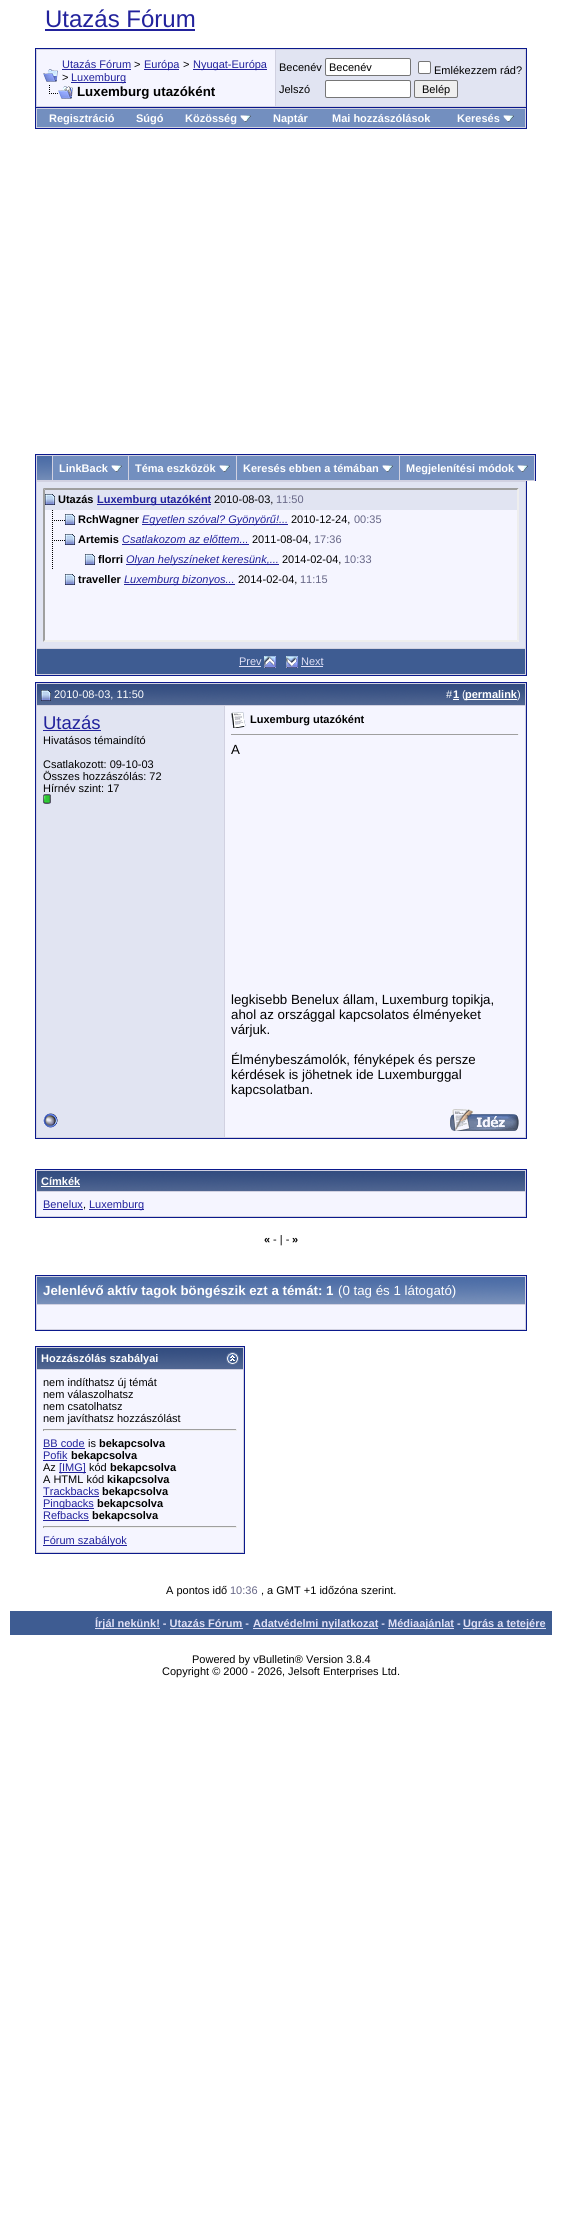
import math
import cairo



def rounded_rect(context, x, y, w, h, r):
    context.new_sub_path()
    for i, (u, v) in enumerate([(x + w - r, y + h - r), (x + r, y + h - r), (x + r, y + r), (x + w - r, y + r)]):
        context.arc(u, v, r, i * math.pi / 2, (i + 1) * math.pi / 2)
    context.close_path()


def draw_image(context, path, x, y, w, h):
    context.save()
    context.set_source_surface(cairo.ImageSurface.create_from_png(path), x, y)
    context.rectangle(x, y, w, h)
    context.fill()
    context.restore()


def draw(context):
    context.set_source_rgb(1, 1, 1)
    context.paint()
    context.set_source_rgb(34 / 255, 34 / 255, 156 / 255)
    context.rectangle(45, 29, 150, 2)
    context.fill()
    context.set_source_rgb(209 / 255, 209 / 255, 225 / 255)
    context.rectangle(35.5, 48.5, 491, 59)
    context.fill_preserve()
    context.set_source_rgb(11 / 255, 25 / 255, 140 / 255)
    context.set_line_width(1)
    context.stroke()
    context.set_source_rgb(245 / 255, 245 / 255, 1)
    context.rectangle(37, 50, 238, 56)
    context.fill()
    draw_image(context, "images/1.png", 43, 69, 15, 13)
    context.set_source_rgb(34 / 255, 34 / 255, 156 / 255)
    context.rectangle(62, 69, 69, 1)
    context.fill()
    context.rectangle(144, 69, 35, 1)
    context.fill()
    context.rectangle(193, 69, 74, 1)
    context.fill()
    context.rectangle(71, 82, 55, 1)
    context.fill()
    draw_image(context, "images/2.png", 49, 85, 24, 14)
    context.set_source_rgb(225 / 255, 228 / 255, 242 / 255)
    context.rectangle(276, 50, 249, 56)
    context.fill()
    context.set_source_rgb(1, 1, 1)
    rounded_rect(context, 325.5, 58.5, 85, 17, 1.5)
    context.fill_preserve()
    context.set_source_rgb(118 / 255, 118 / 255, 118 / 255)
    context.stroke()
    context.set_source_rgb(1, 1, 1)
    rounded_rect(context, 418.5, 61.5, 12, 12, 1.5)
    context.fill_preserve()
    context.set_source_rgb(118 / 255, 118 / 255, 118 / 255)
    context.stroke()
    context.set_source_rgb(1, 1, 1)
    rounded_rect(context, 325.5, 80.5, 85, 17, 1.5)
    context.fill_preserve()
    context.set_source_rgb(118 / 255, 118 / 255, 118 / 255)
    context.stroke()
    context.set_source_rgb(239 / 255, 239 / 255, 239 / 255)
    rounded_rect(context, 414.5, 80.5, 43, 17, 1.5)
    context.fill_preserve()
    context.set_source_rgb(118 / 255, 118 / 255, 118 / 255)
    context.stroke()
    context.set_source_rgb(209 / 255, 209 / 255, 225 / 255)
    context.rectangle(36, 108, 490, 20)
    context.fill()
    context.set_source_rgb(11 / 255, 25 / 255, 140 / 255)
    context.rectangle(526, 108, 1, 21)
    context.fill()
    context.rectangle(35, 128, 492, 1)
    context.fill()
    context.rectangle(35, 108, 1, 21)
    context.fill()
    context.set_source_rgb(115 / 255, 143 / 255, 191 / 255)
    context.rectangle(37, 109, 488, 18)
    context.fill()
    draw_image(context, "images/3.png", 240, 115, 11, 7)
    draw_image(context, "images/3.png", 503, 115, 11, 7)
    context.set_source_rgb(209 / 255, 209 / 255, 225 / 255)
    context.rectangle(36, 455, 499, 26)
    context.fill()
    context.set_source_rgb(11 / 255, 25 / 255, 140 / 255)
    context.rectangle(35, 454, 501, 1)
    context.fill()
    context.rectangle(535, 454, 1, 27)
    context.fill()
    context.rectangle(35, 454, 1, 27)
    context.fill()
    draw_image(context, "images/4.png", 37, 456, 15, 24)
    context.set_source_rgb(115 / 255, 143 / 255, 191 / 255)
    context.rectangle(53, 456, 75, 24)
    context.fill()
    draw_image(context, "images/3.png", 111, 465, 11, 7)
    context.rectangle(129, 456, 107, 24)
    context.fill()
    draw_image(context, "images/3.png", 219, 465, 11, 7)
    context.rectangle(237, 456, 162, 24)
    context.fill()
    draw_image(context, "images/3.png", 382, 465, 11, 7)
    context.rectangle(400, 456, 134, 24)
    context.fill()
    draw_image(context, "images/3.png", 517, 465, 11, 7)
    context.set_source_rgb(209 / 255, 209 / 255, 225 / 255)
    context.rectangle(36, 481, 490, 194)
    context.fill()
    context.set_source_rgb(11 / 255, 25 / 255, 140 / 255)
    context.rectangle(526, 481, 1, 195)
    context.fill()
    context.rectangle(35, 675, 492, 1)
    context.fill()
    context.rectangle(35, 481, 1, 195)
    context.fill()
    context.set_source_rgb(225 / 255, 228 / 255, 242 / 255)
    context.rectangle(37, 482, 488, 166)
    context.fill()
    context.set_source_rgb(245 / 255, 245 / 255, 1)
    context.rectangle(43, 488, 476, 154)
    context.fill()
    context.set_source_rgb(159 / 255, 159 / 255, 159 / 255)
    context.new_path()
    context.move_to(43, 488)
    context.line_to(519, 488)
    context.line_to(517, 490)
    context.line_to(45, 490)
    context.close_path()
    context.fill()
    context.set_source_rgb(238 / 255, 238 / 255, 238 / 255)
    context.new_path()
    context.move_to(519, 488)
    context.line_to(519, 642)
    context.line_to(517, 640)
    context.line_to(517, 490)
    context.close_path()
    context.fill()
    context.new_path()
    context.move_to(519, 642)
    context.line_to(43, 642)
    context.line_to(45, 640)
    context.line_to(517, 640)
    context.close_path()
    context.fill()
    context.set_source_rgb(159 / 255, 159 / 255, 159 / 255)
    context.new_path()
    context.move_to(43, 642)
    context.line_to(43, 488)
    context.line_to(45, 490)
    context.line_to(45, 640)
    context.close_path()
    context.fill()
    context.set_source_rgb(225 / 255, 228 / 255, 242 / 255)
    context.rectangle(45, 490, 472, 20)
    context.fill()
    draw_image(context, "images/5.png", 45, 494, 10, 11)
    context.set_source_rgb(34 / 255, 34 / 255, 156 / 255)
    context.rectangle(97, 504, 114, 1)
    context.fill()
    draw_image(context, "images/6.png", 52, 510, 13, 19)
    draw_image(context, "images/7.png", 65, 514, 10, 11)
    context.rectangle(142, 524, 146, 1)
    context.fill()
    draw_image(context, "images/6.png", 52, 530, 13, 19)
    draw_image(context, "images/7.png", 65, 534, 10, 11)
    context.rectangle(122, 544, 127, 1)
    context.fill()
    draw_image(context, "images/8.png", 52, 550, 1, 19)
    draw_image(context, "images/7.png", 85, 554, 10, 11)
    context.rectangle(126, 564, 153, 1)
    context.fill()
    draw_image(context, "images/7.png", 65, 574, 10, 11)
    context.rectangle(124, 584, 111, 1)
    context.fill()
    context.set_source_rgb(62 / 255, 92 / 255, 146 / 255)
    context.rectangle(37, 649, 488, 25)
    context.fill()
    context.set_source_rgb(224 / 255, 224 / 255, 246 / 255)
    context.rectangle(239, 666, 22, 1)
    context.fill()
    draw_image(context, "images/9.png", 264, 656, 12, 12)
    draw_image(context, "images/10.png", 286, 656, 12, 12)
    context.rectangle(301, 666, 22, 1)
    context.fill()
    context.rectangle(35.5, 682.5, 491, 456)
    context.set_source_rgb(11 / 255, 25 / 255, 140 / 255)
    context.stroke()
    draw_image(context, "images/11.png", 37, 684, 188, 21)
    context.set_source_rgb(209 / 255, 209 / 255, 225 / 255)
    context.rectangle(36, 683, 490, 1)
    context.fill()
    context.rectangle(36, 705, 189, 1)
    context.fill()
    context.rectangle(36, 683, 1, 420)
    context.fill()
    draw_image(context, "images/12.png", 41, 690, 10, 11)
    draw_image(context, "images/13.png", 225, 684, 300, 21)
    context.rectangle(525, 683, 1, 455)
    context.fill()
    context.rectangle(225, 705, 301, 1)
    context.fill()
    context.set_source_rgb(1, 1, 1)
    context.rectangle(453, 699, 6, 1)
    context.fill()
    context.rectangle(465, 699, 52, 1)
    context.fill()
    context.set_source_rgb(225 / 255, 228 / 255, 242 / 255)
    context.rectangle(37, 706, 187, 431)
    context.fill()
    context.set_source_rgb(209 / 255, 209 / 255, 225 / 255)
    context.rectangle(224, 706, 1, 432)
    context.fill()
    context.set_source_rgb(34 / 255, 34 / 255, 156 / 255)
    context.rectangle(43, 730, 58, 1)
    context.fill()
    draw_image(context, "images/14.png", 43, 794, 8, 10)
    context.set_source_rgb(245 / 255, 245 / 255, 1)
    context.rectangle(225, 706, 300, 431)
    context.fill()
    draw_image(context, "images/15.png", 231, 712, 15, 16)
    context.set_source_rgb(159 / 255, 159 / 255, 159 / 255)
    context.rectangle(231, 734, 288, 1)
    context.fill()
    context.set_source_rgb(238 / 255, 238 / 255, 238 / 255)
    context.rectangle(518, 734, 1, 1)
    context.fill()
    context.set_source_rgb(209 / 255, 209 / 255, 225 / 255)
    context.rectangle(36, 1137, 490, 1)
    context.fill()
    context.rectangle(36, 1103, 1, 35)
    context.fill()
    draw_image(context, "images/16.png", 43, 1113, 15, 15)
    draw_image(context, "images/17.png", 449, 1109, 70, 22)
    context.rectangle(35.5, 1169.5, 491, 48)
    context.fill_preserve()
    context.set_source_rgb(11 / 255, 25 / 255, 140 / 255)
    context.stroke()
    draw_image(context, "images/18.png", 37, 1171, 488, 20)
    context.set_source_rgb(1, 1, 1)
    context.rectangle(41, 1186, 39, 1)
    context.fill()
    context.set_source_rgb(245 / 255, 245 / 255, 1)
    context.rectangle(37, 1192, 488, 24)
    context.fill()
    context.set_source_rgb(34 / 255, 34 / 255, 156 / 255)
    context.rectangle(43, 1209, 40, 1)
    context.fill()
    context.rectangle(89, 1209, 55, 1)
    context.fill()
    context.set_source_rgb(209 / 255, 209 / 255, 225 / 255)
    context.rectangle(35.5, 1275.5, 491, 55)
    context.fill_preserve()
    context.set_source_rgb(11 / 255, 25 / 255, 140 / 255)
    context.stroke()
    draw_image(context, "images/19.png", 37, 1277, 488, 27)
    context.set_source_rgb(245 / 255, 245 / 255, 1)
    context.rectangle(37, 1305, 488, 24)
    context.fill()
    context.set_source_rgb(209 / 255, 209 / 255, 225 / 255)
    context.rectangle(35.5, 1346.5, 209, 207)
    context.fill_preserve()
    context.set_source_rgb(11 / 255, 25 / 255, 140 / 255)
    context.stroke()
    draw_image(context, "images/20.png", 37, 1348, 206, 21)
    draw_image(context, "images/21.png", 226, 1352, 13, 13)
    context.set_source_rgb(245 / 255, 245 / 255, 1)
    context.rectangle(37, 1370, 206, 182)
    context.fill()
    context.set_source_rgb(159 / 255, 159 / 255, 159 / 255)
    context.rectangle(43, 1429, 194, 1)
    context.fill()
    context.set_source_rgb(238 / 255, 238 / 255, 238 / 255)
    context.rectangle(236, 1429, 1, 2)
    context.fill()
    context.rectangle(43, 1430, 194, 1)
    context.fill()
    context.set_source_rgb(159 / 255, 159 / 255, 159 / 255)
    context.rectangle(43, 1429, 1, 2)
    context.fill()
    context.set_source_rgb(34 / 255, 34 / 255, 156 / 255)
    context.rectangle(43, 1448, 42, 1)
    context.fill()
    context.rectangle(43, 1460, 24, 1)
    context.fill()
    context.rectangle(59, 1472, 27, 1)
    context.fill()
    context.rectangle(43, 1496, 56, 1)
    context.fill()
    context.rectangle(43, 1508, 51, 1)
    context.fill()
    context.rectangle(43, 1520, 46, 1)
    context.fill()
    context.set_source_rgb(159 / 255, 159 / 255, 159 / 255)
    context.rectangle(43, 1526, 194, 1)
    context.fill()
    context.set_source_rgb(238 / 255, 238 / 255, 238 / 255)
    context.rectangle(236, 1526, 1, 2)
    context.fill()
    context.rectangle(43, 1527, 194, 1)
    context.fill()
    context.set_source_rgb(159 / 255, 159 / 255, 159 / 255)
    context.rectangle(43, 1526, 1, 2)
    context.fill()
    context.set_source_rgb(34 / 255, 34 / 255, 156 / 255)
    context.rectangle(43, 1545, 84, 1)
    context.fill()
    context.set_source_rgb(62 / 255, 92 / 255, 146 / 255)
    context.rectangle(10, 1611, 542, 24)
    context.fill()
    context.set_source_rgb(224 / 255, 224 / 255, 246 / 255)
    context.rectangle(95, 1628, 65, 1)
    context.fill()
    context.rectangle(170, 1628, 73, 1)
    context.fill()
    context.rectangle(253, 1628, 125, 1)
    context.fill()
    context.rectangle(388, 1628, 66, 1)
    context.fill()
    context.rectangle(463, 1628, 83, 1)
    context.fill()
    context.select_font_face("Liberation Sans")
    context.set_font_size(24)
    context.set_source_rgb(34 / 255, 34 / 255, 156 / 255)
    context.move_to(45, 27)
    context.show_text("Utazás Fórum")
    context.set_font_size(11)
    context.move_to(62, 68)
    context.show_text("Utazás Fórum")
    context.set_source_rgb(0, 0, 0)
    context.move_to(134, 68)
    context.show_text(">")
    context.set_source_rgb(34 / 255, 34 / 255, 156 / 255)
    context.move_to(144, 68)
    context.show_text("Európa")
    context.set_source_rgb(0, 0, 0)
    context.move_to(183, 68)
    context.show_text(">")
    context.set_source_rgb(34 / 255, 34 / 255, 156 / 255)
    context.move_to(193, 68)
    context.show_text("Nyugat-Európa")
    context.set_source_rgb(0, 0, 0)
    context.move_to(62, 81)
    context.show_text(">")
    context.set_source_rgb(34 / 255, 34 / 255, 156 / 255)
    context.move_to(71, 81)
    context.show_text("Luxemburg")
    context.select_font_face("Liberation Sans", cairo.FontSlant.NORMAL, cairo.FontWeight.BOLD)
    context.set_font_size(13.3)
    context.set_source_rgb(0, 0, 0)
    context.move_to(77, 96)
    context.show_text("Luxemburg utazóként")
    context.select_font_face("Liberation Sans")
    context.set_font_size(11)
    context.move_to(279, 71)
    context.show_text("Becenév")
    context.move_to(329, 71)
    context.show_text("Becenév")
    context.move_to(434, 74)
    context.show_text("Emlékezzem rád?")
    context.move_to(279, 93)
    context.show_text("Jelszó")
    context.move_to(422, 93)
    context.show_text("Belép")
    context.select_font_face("Liberation Sans", cairo.FontSlant.NORMAL, cairo.FontWeight.BOLD)
    context.set_source_rgb(1, 1, 1)
    context.move_to(49, 122)
    context.show_text("Regisztráció")
    context.move_to(136, 122)
    context.show_text("Súgó")
    context.move_to(185, 122)
    context.show_text("Közösség")
    context.move_to(273, 122)
    context.show_text("Naptár")
    context.move_to(332, 122)
    context.show_text("Mai hozzászólások")
    context.move_to(457, 122)
    context.show_text("Keresés")
    context.move_to(59, 472)
    context.show_text("LinkBack")
    context.move_to(135, 472)
    context.show_text("Téma eszközök")
    context.move_to(243, 472)
    context.show_text("Keresés ebben a témában")
    context.move_to(406, 472)
    context.show_text("Megjelenítési módok")
    context.set_source_rgb(0, 0, 0)
    context.move_to(58, 503)
    context.show_text("Utazás")
    context.set_source_rgb(34 / 255, 34 / 255, 156 / 255)
    context.move_to(97, 503)
    context.show_text("Luxemburg utazóként")
    context.select_font_face("Liberation Sans")
    context.set_source_rgb(0, 0, 0)
    context.move_to(214, 503)
    context.show_text("2010-08-03,")
    context.set_source_rgb(102 / 255, 102 / 255, 134 / 255)
    context.move_to(276, 503)
    context.show_text("11:50")
    context.select_font_face("Liberation Sans", cairo.FontSlant.NORMAL, cairo.FontWeight.BOLD)
    context.set_source_rgb(0, 0, 0)
    context.move_to(78, 523)
    context.show_text("RchWagner")
    context.select_font_face("Liberation Sans", cairo.FontSlant.ITALIC)
    context.set_source_rgb(34 / 255, 34 / 255, 156 / 255)
    context.move_to(142, 523)
    context.show_text("Egyetlen szóval? Gyönyörű!...")
    context.select_font_face("Liberation Sans")
    context.set_source_rgb(0, 0, 0)
    context.move_to(291, 523)
    context.show_text("2010-12-24,")
    context.set_source_rgb(102 / 255, 102 / 255, 134 / 255)
    context.move_to(354, 523)
    context.show_text("00:35")
    context.select_font_face("Liberation Sans", cairo.FontSlant.NORMAL, cairo.FontWeight.BOLD)
    context.set_source_rgb(0, 0, 0)
    context.move_to(78, 543)
    context.show_text("Artemis")
    context.select_font_face("Liberation Sans", cairo.FontSlant.ITALIC)
    context.set_source_rgb(34 / 255, 34 / 255, 156 / 255)
    context.move_to(122, 543)
    context.show_text("Csatlakozom az előttem...")
    context.select_font_face("Liberation Sans")
    context.set_source_rgb(0, 0, 0)
    context.move_to(252, 543)
    context.show_text("2011-08-04,")
    context.set_source_rgb(102 / 255, 102 / 255, 134 / 255)
    context.move_to(314, 543)
    context.show_text("17:36")
    context.select_font_face("Liberation Sans", cairo.FontSlant.NORMAL, cairo.FontWeight.BOLD)
    context.set_source_rgb(0, 0, 0)
    context.move_to(98, 563)
    context.show_text("florri")
    context.select_font_face("Liberation Sans", cairo.FontSlant.ITALIC)
    context.set_source_rgb(34 / 255, 34 / 255, 156 / 255)
    context.move_to(126, 563)
    context.show_text("Olyan helyszíneket keresünk,...")
    context.select_font_face("Liberation Sans")
    context.set_source_rgb(0, 0, 0)
    context.move_to(282, 563)
    context.show_text("2014-02-04,")
    context.set_source_rgb(102 / 255, 102 / 255, 134 / 255)
    context.move_to(344, 563)
    context.show_text("10:33")
    context.select_font_face("Liberation Sans", cairo.FontSlant.NORMAL, cairo.FontWeight.BOLD)
    context.set_source_rgb(0, 0, 0)
    context.move_to(78, 583)
    context.show_text("traveller")
    context.select_font_face("Liberation Sans", cairo.FontSlant.ITALIC)
    context.set_source_rgb(34 / 255, 34 / 255, 156 / 255)
    context.move_to(124, 583)
    context.show_text("Luxemburg bizonyos...")
    context.select_font_face("Liberation Sans")
    context.set_source_rgb(0, 0, 0)
    context.move_to(238, 583)
    context.show_text("2014-02-04,")
    context.set_source_rgb(102 / 255, 102 / 255, 134 / 255)
    context.move_to(300, 583)
    context.show_text("11:15")
    context.set_source_rgb(224 / 255, 224 / 255, 246 / 255)
    context.move_to(239, 665)
    context.show_text("Prev")
    context.move_to(301, 665)
    context.show_text("Next")
    context.set_source_rgb(1, 1, 1)
    context.move_to(54, 698)
    context.show_text("2010-08-03, 11:50")
    context.move_to(446, 698)
    context.show_text("#")
    context.select_font_face("Liberation Sans", cairo.FontSlant.NORMAL, cairo.FontWeight.BOLD)
    context.move_to(453, 698)
    context.show_text("1")
    context.select_font_face("Liberation Sans")
    context.move_to(462, 698)
    context.show_text("(")
    context.select_font_face("Liberation Sans", cairo.FontSlant.NORMAL, cairo.FontWeight.BOLD)
    context.move_to(465, 698)
    context.show_text("permalink")
    context.select_font_face("Liberation Sans")
    context.move_to(517, 698)
    context.show_text(")")
    context.set_font_size(18.5)
    context.set_source_rgb(34 / 255, 34 / 255, 156 / 255)
    context.move_to(43, 729)
    context.show_text("Utazás")
    context.set_font_size(11)
    context.set_source_rgb(0, 0, 0)
    context.move_to(43, 744)
    context.show_text("Hivatásos témaindító")
    context.move_to(43, 768)
    context.show_text("Csatlakozott: 09-10-03")
    context.move_to(43, 780)
    context.show_text("Összes hozzászólás: 72")
    context.move_to(43, 792)
    context.show_text("Hírnév szint: 17")
    context.select_font_face("Liberation Sans", cairo.FontSlant.NORMAL, cairo.FontWeight.BOLD)
    context.move_to(250, 723)
    context.show_text("Luxemburg utazóként")
    context.select_font_face("Liberation Sans")
    context.set_font_size(13.3)
    context.move_to(231, 754)
    context.show_text("A")
    context.move_to(231, 1004)
    context.show_text("legkisebb Benelux állam, Luxemburg topikja,")
    context.move_to(231, 1019)
    context.show_text("ahol az országgal kapcsolatos élményeket")
    context.move_to(231, 1034)
    context.show_text("várjuk.")
    context.move_to(231, 1064)
    context.show_text("Élménybeszámolók, fényképek és persze")
    context.move_to(231, 1079)
    context.show_text("kérdések is jöhetnek ide Luxemburggal")
    context.move_to(231, 1094)
    context.show_text("kapcsolatban.")
    context.select_font_face("Liberation Sans", cairo.FontSlant.NORMAL, cairo.FontWeight.BOLD)
    context.set_font_size(11)
    context.set_source_rgb(1, 1, 1)
    context.move_to(41, 1185)
    context.show_text("Címkék")
    context.select_font_face("Liberation Sans")
    context.set_source_rgb(34 / 255, 34 / 255, 156 / 255)
    context.move_to(43, 1208)
    context.show_text("Benelux")
    context.set_source_rgb(0, 0, 0)
    context.move_to(83, 1208)
    context.show_text(",")
    context.set_source_rgb(34 / 255, 34 / 255, 156 / 255)
    context.move_to(89, 1208)
    context.show_text("Luxemburg")
    context.select_font_face("Liberation Sans", cairo.FontSlant.NORMAL, cairo.FontWeight.BOLD)
    context.set_source_rgb(0, 0, 0)
    context.move_to(264, 1243)
    context.show_text("«")
    context.select_font_face("Liberation Sans")
    context.move_to(273, 1243)
    context.show_text("- | -")
    context.select_font_face("Liberation Sans", cairo.FontSlant.NORMAL, cairo.FontWeight.BOLD)
    context.move_to(292, 1243)
    context.show_text("»")
    context.set_font_size(13.3)
    context.set_source_rgb(1, 1, 1)
    context.move_to(43, 1295)
    context.show_text("Jelenlévő aktív tagok böngészik ezt a témát: 1")
    context.select_font_face("Liberation Sans")
    context.move_to(338, 1295)
    context.show_text("(0 tag és 1 látogató)")
    context.select_font_face("Liberation Sans", cairo.FontSlant.NORMAL, cairo.FontWeight.BOLD)
    context.set_font_size(11)
    context.move_to(41, 1362)
    context.show_text("Hozzászólás szabályai")
    context.select_font_face("Liberation Sans")
    context.set_source_rgb(0, 0, 0)
    context.move_to(43, 1386)
    context.show_text("nem indíthatsz új témát")
    context.move_to(43, 1398)
    context.show_text("nem válaszolhatsz")
    context.move_to(43, 1410)
    context.show_text("nem csatolhatsz")
    context.move_to(43, 1422)
    context.show_text("nem javíthatsz hozzászólást")
    context.set_source_rgb(34 / 255, 34 / 255, 156 / 255)
    context.move_to(43, 1447)
    context.show_text("BB code")
    context.set_source_rgb(0, 0, 0)
    context.move_to(88, 1447)
    context.show_text("is")
    context.select_font_face("Liberation Sans", cairo.FontSlant.NORMAL, cairo.FontWeight.BOLD)
    context.move_to(99, 1447)
    context.show_text("bekapcsolva")
    context.select_font_face("Liberation Sans")
    context.set_source_rgb(34 / 255, 34 / 255, 156 / 255)
    context.move_to(43, 1459)
    context.show_text("Pofik")
    context.select_font_face("Liberation Sans", cairo.FontSlant.NORMAL, cairo.FontWeight.BOLD)
    context.set_source_rgb(0, 0, 0)
    context.move_to(71, 1459)
    context.show_text("bekapcsolva")
    context.select_font_face("Liberation Sans")
    context.move_to(43, 1471)
    context.show_text("Az")
    context.set_source_rgb(34 / 255, 34 / 255, 156 / 255)
    context.move_to(59, 1471)
    context.show_text("[IMG]")
    context.set_source_rgb(0, 0, 0)
    context.move_to(89, 1471)
    context.show_text("kód")
    context.select_font_face("Liberation Sans", cairo.FontSlant.NORMAL, cairo.FontWeight.BOLD)
    context.move_to(110, 1471)
    context.show_text("bekapcsolva")
    context.select_font_face("Liberation Sans")
    context.move_to(43, 1483)
    context.show_text("A HTML kód")
    context.select_font_face("Liberation Sans", cairo.FontSlant.NORMAL, cairo.FontWeight.BOLD)
    context.move_to(107, 1483)
    context.show_text("kikapcsolva")
    context.select_font_face("Liberation Sans")
    context.set_source_rgb(34 / 255, 34 / 255, 156 / 255)
    context.move_to(43, 1495)
    context.show_text("Trackbacks")
    context.select_font_face("Liberation Sans", cairo.FontSlant.NORMAL, cairo.FontWeight.BOLD)
    context.set_source_rgb(0, 0, 0)
    context.move_to(102, 1495)
    context.show_text("bekapcsolva")
    context.select_font_face("Liberation Sans")
    context.set_source_rgb(34 / 255, 34 / 255, 156 / 255)
    context.move_to(43, 1507)
    context.show_text("Pingbacks")
    context.select_font_face("Liberation Sans", cairo.FontSlant.NORMAL, cairo.FontWeight.BOLD)
    context.set_source_rgb(0, 0, 0)
    context.move_to(97, 1507)
    context.show_text("bekapcsolva")
    context.select_font_face("Liberation Sans")
    context.set_source_rgb(34 / 255, 34 / 255, 156 / 255)
    context.move_to(43, 1519)
    context.show_text("Refbacks")
    context.select_font_face("Liberation Sans", cairo.FontSlant.NORMAL, cairo.FontWeight.BOLD)
    context.set_source_rgb(0, 0, 0)
    context.move_to(92, 1519)
    context.show_text("bekapcsolva")
    context.select_font_face("Liberation Sans")
    context.set_source_rgb(34 / 255, 34 / 255, 156 / 255)
    context.move_to(43, 1544)
    context.show_text("Fórum szabályok")
    context.set_source_rgb(0, 0, 0)
    context.move_to(166, 1594)
    context.show_text("A pontos idő")
    context.set_source_rgb(102 / 255, 102 / 255, 134 / 255)
    context.move_to(230, 1594)
    context.show_text("10:36")
    context.set_source_rgb(0, 0, 0)
    context.move_to(261, 1594)
    context.show_text(", a GMT +1 időzóna szerint.")
    context.select_font_face("Liberation Sans", cairo.FontSlant.NORMAL, cairo.FontWeight.BOLD)
    context.set_source_rgb(224 / 255, 224 / 255, 246 / 255)
    context.move_to(95, 1627)
    context.show_text("Írjál nekünk! - Utazás Fórum -")
    context.move_to(253, 1627)
    context.show_text("Adatvédelmi nyilatkozat -")
    context.move_to(388, 1627)
    context.show_text("Médiaajánlat -")
    context.move_to(463, 1627)
    context.show_text("Ugrás a tetejére")
    context.select_font_face("Liberation Sans")
    context.set_source_rgb(0, 0, 0)
    context.move_to(192, 1663)
    context.show_text("Powered by vBulletin® Version 3.8.4")
    context.move_to(162, 1675)
    context.show_text("Copyright © 2000 - 2026, Jelsoft Enterprises Ltd.")


surface = cairo.ImageSurface(cairo.Format.RGB24, 562, 2231)
context = cairo.Context(surface)
options = cairo.FontOptions()
options.set_hint_metrics(cairo.HintMetrics.OFF)
options.set_hint_style(cairo.HintStyle.NONE)
context.set_font_options(options)
context.set_miter_limit(4)
draw(context)
surface.write_to_png("out.png")
